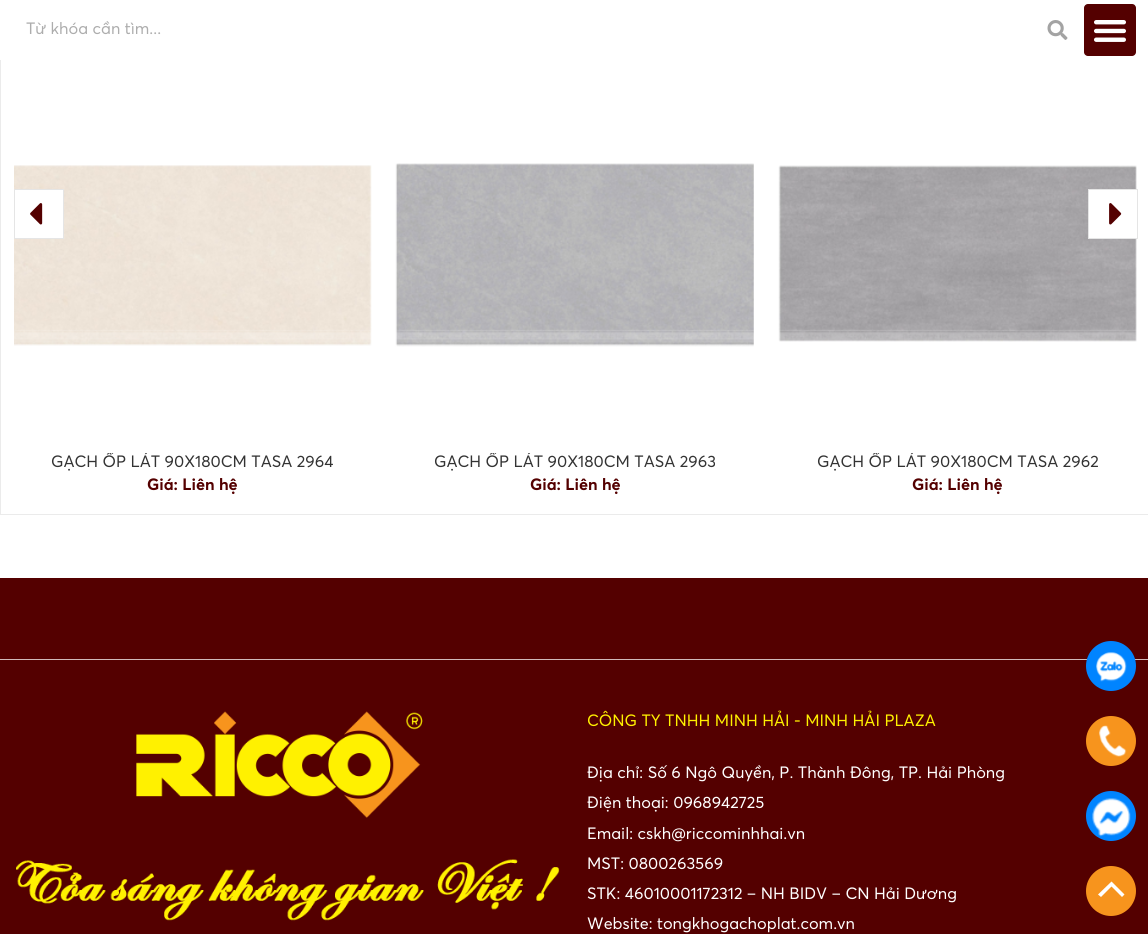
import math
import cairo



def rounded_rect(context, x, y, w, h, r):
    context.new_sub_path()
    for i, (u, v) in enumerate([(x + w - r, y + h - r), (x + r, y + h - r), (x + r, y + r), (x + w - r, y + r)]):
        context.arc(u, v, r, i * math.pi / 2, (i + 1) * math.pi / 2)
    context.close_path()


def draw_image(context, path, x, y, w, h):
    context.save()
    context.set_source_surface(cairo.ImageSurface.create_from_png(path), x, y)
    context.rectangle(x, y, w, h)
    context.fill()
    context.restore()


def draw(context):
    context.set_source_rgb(1, 1, 1)
    context.paint()
    draw_image(context, "images/1.png", 1047, 20, 21, 20)
    context.set_source_rgb(84 / 255, 0, 0)
    rounded_rect(context, 1084, 4, 52, 52, 4)
    context.fill()
    draw_image(context, "images/2.png", 1094, 20, 32, 22)
    context.set_source_rgb(235 / 255, 235 / 255, 235 / 255)
    context.rectangle(0, 514, 1148, 1)
    context.fill()
    context.rectangle(0, 60, 1, 455)
    context.fill()
    draw_image(context, "images/5.png", 14, 165, 358, 181)
    context.set_source_rgb(1, 1, 1)
    context.rectangle(14.5, 189.5, 49, 49)
    context.fill_preserve()
    context.set_source_rgb(229 / 255, 229 / 255, 229 / 255)
    context.set_line_width(1)
    context.stroke()
    draw_image(context, "images/3.png", 30, 203, 13, 22)
    draw_image(context, "images/7.png", 778, 165, 359, 177)
    context.set_source_rgb(1, 1, 1)
    context.rectangle(1088.5, 189.5, 49, 49)
    context.fill_preserve()
    context.set_source_rgb(229 / 255, 229 / 255, 229 / 255)
    context.stroke()
    draw_image(context, "images/4.png", 1109, 203, 13, 22)
    draw_image(context, "images/6.png", 395, 163, 359, 184)
    context.set_source_rgb(84 / 255, 0, 0)
    context.rectangle(0, 578, 1148, 81)
    context.fill()
    context.rectangle(0, 660, 1148, 274)
    context.fill()
    context.set_source_rgb(209 / 255, 186 / 255, 186 / 255)
    context.rectangle(0, 659, 1148, 1)
    context.fill()
    draw_image(context, "images/8.png", 16, 711, 544, 210)
    context.set_source_rgb(0, 132 / 255, 1)
    context.arc(1111, 666, 25, 0, 2 * math.pi)
    context.fill()
    draw_image(context, "images/9.png", 1096, 652, 31, 30)
    context.set_source_rgb(247 / 255, 148 / 255, 29 / 255)
    context.arc(1111, 741, 25, 0, 2 * math.pi)
    context.fill()
    draw_image(context, "images/10.png", 1099, 725, 28, 32)
    context.set_source_rgb(0, 132 / 255, 1)
    context.arc(1111, 816, 25, 0, 2 * math.pi)
    context.fill()
    draw_image(context, "images/11.png", 1092, 798, 39, 39)
    context.set_source_rgb(247 / 255, 148 / 255, 29 / 255)
    context.arc(1111, 891, 25, 0, 2 * math.pi)
    context.fill()
    context.set_source_rgb(1, 1, 1)
    context.new_path()
    context.move_to(1124.5, 894.5)
    context.line_to(1111.5, 881.5)
    context.line_to(1098, 894.5)
    context.line_to(1101, 897)
    context.line_to(1111.5, 886.5)
    context.line_to(1122, 897)
    context.close_path()
    context.fill()
    context.select_font_face("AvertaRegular")
    context.set_font_size(16.25)
    context.set_source_rgb(173 / 255, 173 / 255, 173 / 255)
    context.move_to(26, 34)
    context.show_text("Từ khóa cần tìm...")
    context.save()
    context.rectangle(51, 453, 283, 22)
    context.clip()
    context.set_source_rgb(51 / 255, 51 / 255, 51 / 255)
    context.move_to(51, 467)
    context.show_text("GẠCH ỐP LÁT 90X180CM TASA 2964")
    context.restore()
    context.select_font_face("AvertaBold", cairo.FontSlant.NORMAL, cairo.FontWeight.BOLD)
    context.set_source_rgb(84 / 255, 0, 0)
    context.move_to(147, 490)
    context.show_text("Giá: Liên hệ")
    context.save()
    context.rectangle(434, 453, 282, 22)
    context.clip()
    context.select_font_face("AvertaRegular")
    context.set_source_rgb(51 / 255, 51 / 255, 51 / 255)
    context.move_to(434, 467)
    context.show_text("GẠCH ỐP LÁT 90X180CM TASA 2963")
    context.restore()
    context.move_to(530, 490)
    context.show_text("Giá: Liên hệ")
    context.save()
    context.rectangle(816, 453, 283, 22)
    context.clip()
    context.select_font_face("AvertaRegular")
    context.set_source_rgb(51 / 255, 51 / 255, 51 / 255)
    context.move_to(817, 467)
    context.show_text("GẠCH ỐP LÁT 90X180CM TASA 2962")
    context.restore()
    context.move_to(912, 490)
    context.show_text("Giá: Liên hệ")
    context.select_font_face("AvertaRegular")
    context.set_source_rgb(1, 241 / 255, 0)
    context.move_to(587, 726)
    context.show_text("CÔNG TY TNHH MINH HẢI - MINH HẢI PLAZA")
    context.set_source_rgb(1, 1, 1)
    context.move_to(587, 778)
    context.show_text("Địa chỉ: Số 6 Ngô Quyền, P. Thành Đông, TP. Hải Phòng")
    context.move_to(587, 808)
    context.show_text("Điện thoại: 0968942725")
    context.move_to(587, 839)
    context.show_text("Email: cskh@riccominhhai.vn")
    context.move_to(587, 869)
    context.show_text("MST: 0800263569")
    context.move_to(587, 899)
    context.show_text("STK: 46010001172312 – NH BIDV – CN Hải Dương")
    context.move_to(587, 929)
    context.show_text("Website: tongkhogachoplat.com.vn")


surface = cairo.ImageSurface(cairo.Format.RGB24, 1148, 934)
context = cairo.Context(surface)
options = cairo.FontOptions()
options.set_hint_metrics(cairo.HintMetrics.OFF)
options.set_hint_style(cairo.HintStyle.NONE)
context.set_font_options(options)
context.set_miter_limit(4)
draw(context)
surface.write_to_png("out.png")
